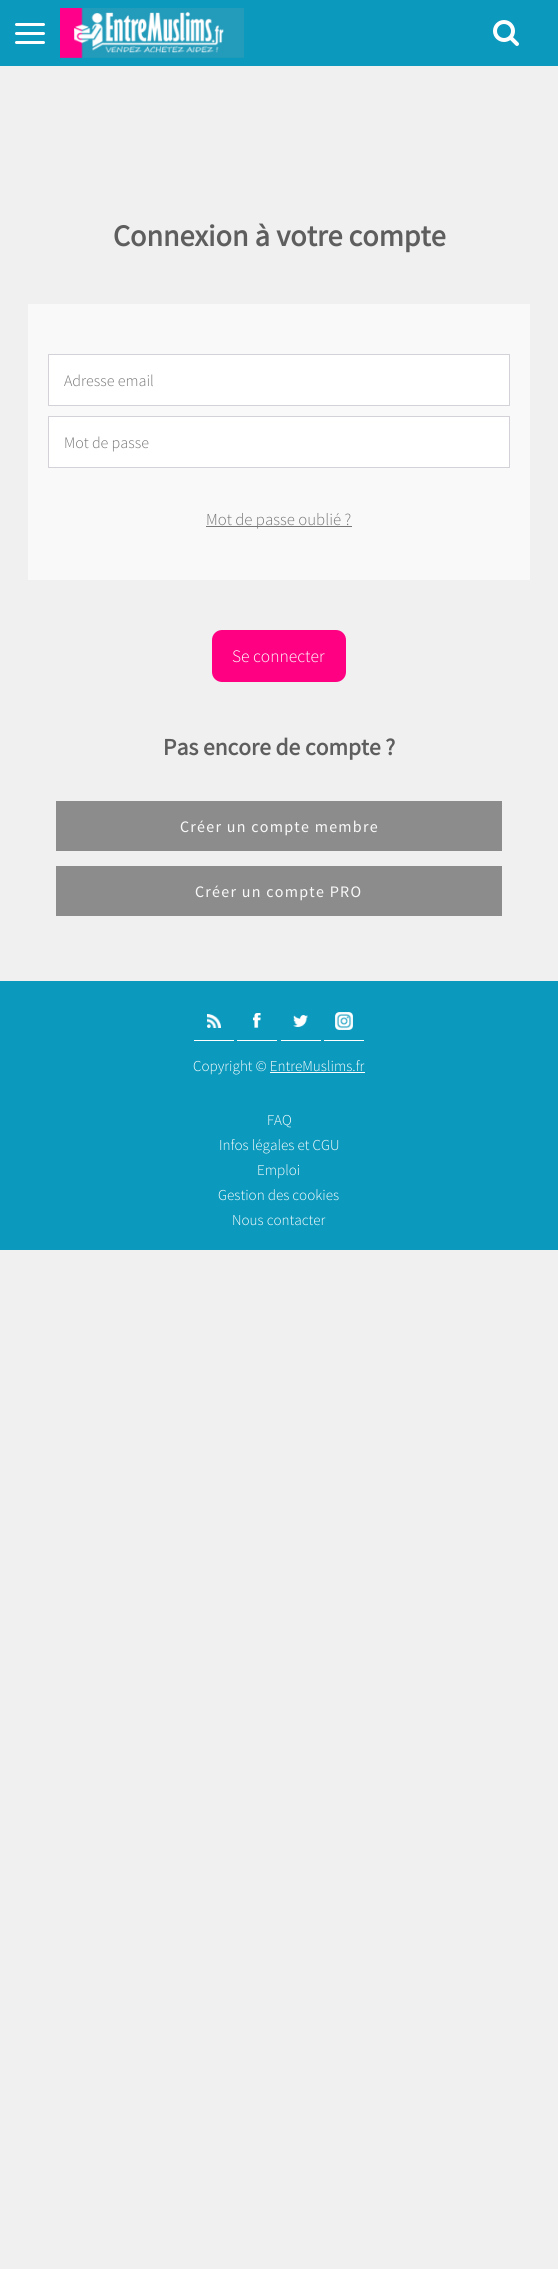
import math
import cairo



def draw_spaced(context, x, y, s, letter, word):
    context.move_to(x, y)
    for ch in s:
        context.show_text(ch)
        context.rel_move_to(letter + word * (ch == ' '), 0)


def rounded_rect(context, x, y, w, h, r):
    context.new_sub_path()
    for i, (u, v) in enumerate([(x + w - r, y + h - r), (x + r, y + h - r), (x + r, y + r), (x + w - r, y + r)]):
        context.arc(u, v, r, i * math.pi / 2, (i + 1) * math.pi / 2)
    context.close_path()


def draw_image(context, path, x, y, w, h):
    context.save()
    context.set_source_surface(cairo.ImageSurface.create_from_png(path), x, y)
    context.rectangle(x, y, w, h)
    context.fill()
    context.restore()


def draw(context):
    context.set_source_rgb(240 / 255, 240 / 255, 240 / 255)
    context.paint()
    context.set_source_rgb(11 / 255, 153 / 255, 189 / 255)
    context.rectangle(0, 0, 558, 66)
    context.fill()
    context.set_source_rgb(1, 1, 1)
    rounded_rect(context, 15, 23, 30, 3, 1.5)
    context.fill()
    rounded_rect(context, 15, 32, 30, 3, 1.5)
    context.fill()
    rounded_rect(context, 15, 41, 30, 3, 1.5)
    context.fill()
    draw_image(context, "images/1.png", 60, 8, 184, 50)
    draw_image(context, "images/2.png", 493, 20, 26, 26)
    context.set_source_rgb(249 / 255, 249 / 255, 249 / 255)
    context.rectangle(28, 304, 502, 276)
    context.fill()
    context.set_source_rgb(1, 1, 1)
    context.rectangle(48.5, 354.5, 461, 51)
    context.fill_preserve()
    context.set_source_rgb(212 / 255, 210 / 255, 216 / 255)
    context.set_line_width(1)
    context.stroke()
    context.set_source_rgb(1, 1, 1)
    context.rectangle(48.5, 416.5, 461, 51)
    context.fill_preserve()
    context.set_source_rgb(212 / 255, 210 / 255, 216 / 255)
    context.stroke()
    context.set_source_rgb(119 / 255, 119 / 255, 119 / 255)
    context.rectangle(206, 526, 146, 1)
    context.fill()
    context.set_source_rgb(1, 0, 131 / 255)
    rounded_rect(context, 212, 630, 134, 52, 10)
    context.fill()
    context.set_source_rgb(140 / 255, 140 / 255, 140 / 255)
    context.rectangle(56, 801, 446, 50)
    context.fill()
    context.rectangle(56, 866, 446, 50)
    context.fill()
    context.set_source_rgb(11 / 255, 153 / 255, 189 / 255)
    context.rectangle(0, 981, 558, 269)
    context.fill()
    draw_image(context, "images/3.png", 207, 1014, 14, 14)
    context.set_source_rgb(1, 1, 1)
    context.rectangle(194, 1040, 40, 1)
    context.fill()
    draw_image(context, "images/4.png", 253, 1013, 8, 15)
    context.rectangle(237, 1040, 40, 1)
    context.fill()
    draw_image(context, "images/5.png", 293, 1015, 15, 12)
    context.rectangle(281, 1040, 40, 1)
    context.fill()
    draw_image(context, "images/6.png", 335, 1012, 18, 18)
    context.rectangle(324, 1040, 40, 1)
    context.fill()
    context.rectangle(270, 1072, 95, 1)
    context.fill()
    context.select_font_face("Source Sans Pro", cairo.FontSlant.NORMAL, cairo.FontWeight.BOLD)
    context.set_font_size(30.25)
    context.set_source_rgb(94 / 255, 94 / 255, 94 / 255)
    context.move_to(113, 246)
    context.show_text("Connexion à votre compte")
    context.select_font_face("Source Sans Pro Light")
    context.set_font_size(16)
    context.set_source_rgb(117 / 255, 117 / 255, 117 / 255)
    context.move_to(64, 386)
    context.show_text("Adresse email")
    context.move_to(64, 448)
    context.show_text("Mot de passe")
    context.set_font_size(16.75)
    context.move_to(206, 525)
    context.show_text("Mot de passe oublié ?")
    context.set_font_size(17.5)
    context.set_source_rgb(1, 1, 1)
    context.move_to(232, 662)
    context.show_text("Se connecter")
    context.select_font_face("Source Sans Pro", cairo.FontSlant.NORMAL, cairo.FontWeight.BOLD)
    context.set_font_size(23.5)
    context.set_source_rgb(94 / 255, 94 / 255, 94 / 255)
    context.move_to(163, 755)
    context.show_text("Pas encore de compte ?")
    context.select_font_face("Source Sans Pro")
    context.set_font_size(16)
    context.set_source_rgb(249 / 255, 249 / 255, 249 / 255)
    draw_spaced(context, 180, 832, "Créer un compte membre", 1.25, 0)
    draw_spaced(context, 195, 897, "Créer un compte PRO", 1.25, 0)
    context.select_font_face("Source Sans Pro Light")
    context.set_font_size(15.1)
    context.set_source_rgb(1, 1, 1)
    context.move_to(193, 1071)
    context.show_text("Copyright © EntreMuslims.fr")
    context.move_to(267, 1125)
    context.show_text("FAQ")
    context.move_to(219, 1150)
    context.show_text("Infos légales et CGU")
    context.move_to(257, 1175)
    context.show_text("Emploi")
    context.move_to(218, 1200)
    context.show_text("Gestion des cookies")
    context.move_to(232, 1225)
    context.show_text("Nous contacter")


surface = cairo.ImageSurface(cairo.Format.RGB24, 558, 2269)
context = cairo.Context(surface)
options = cairo.FontOptions()
options.set_hint_metrics(cairo.HintMetrics.OFF)
options.set_hint_style(cairo.HintStyle.NONE)
context.set_font_options(options)
context.set_miter_limit(4)
draw(context)
surface.write_to_png("out.png")
